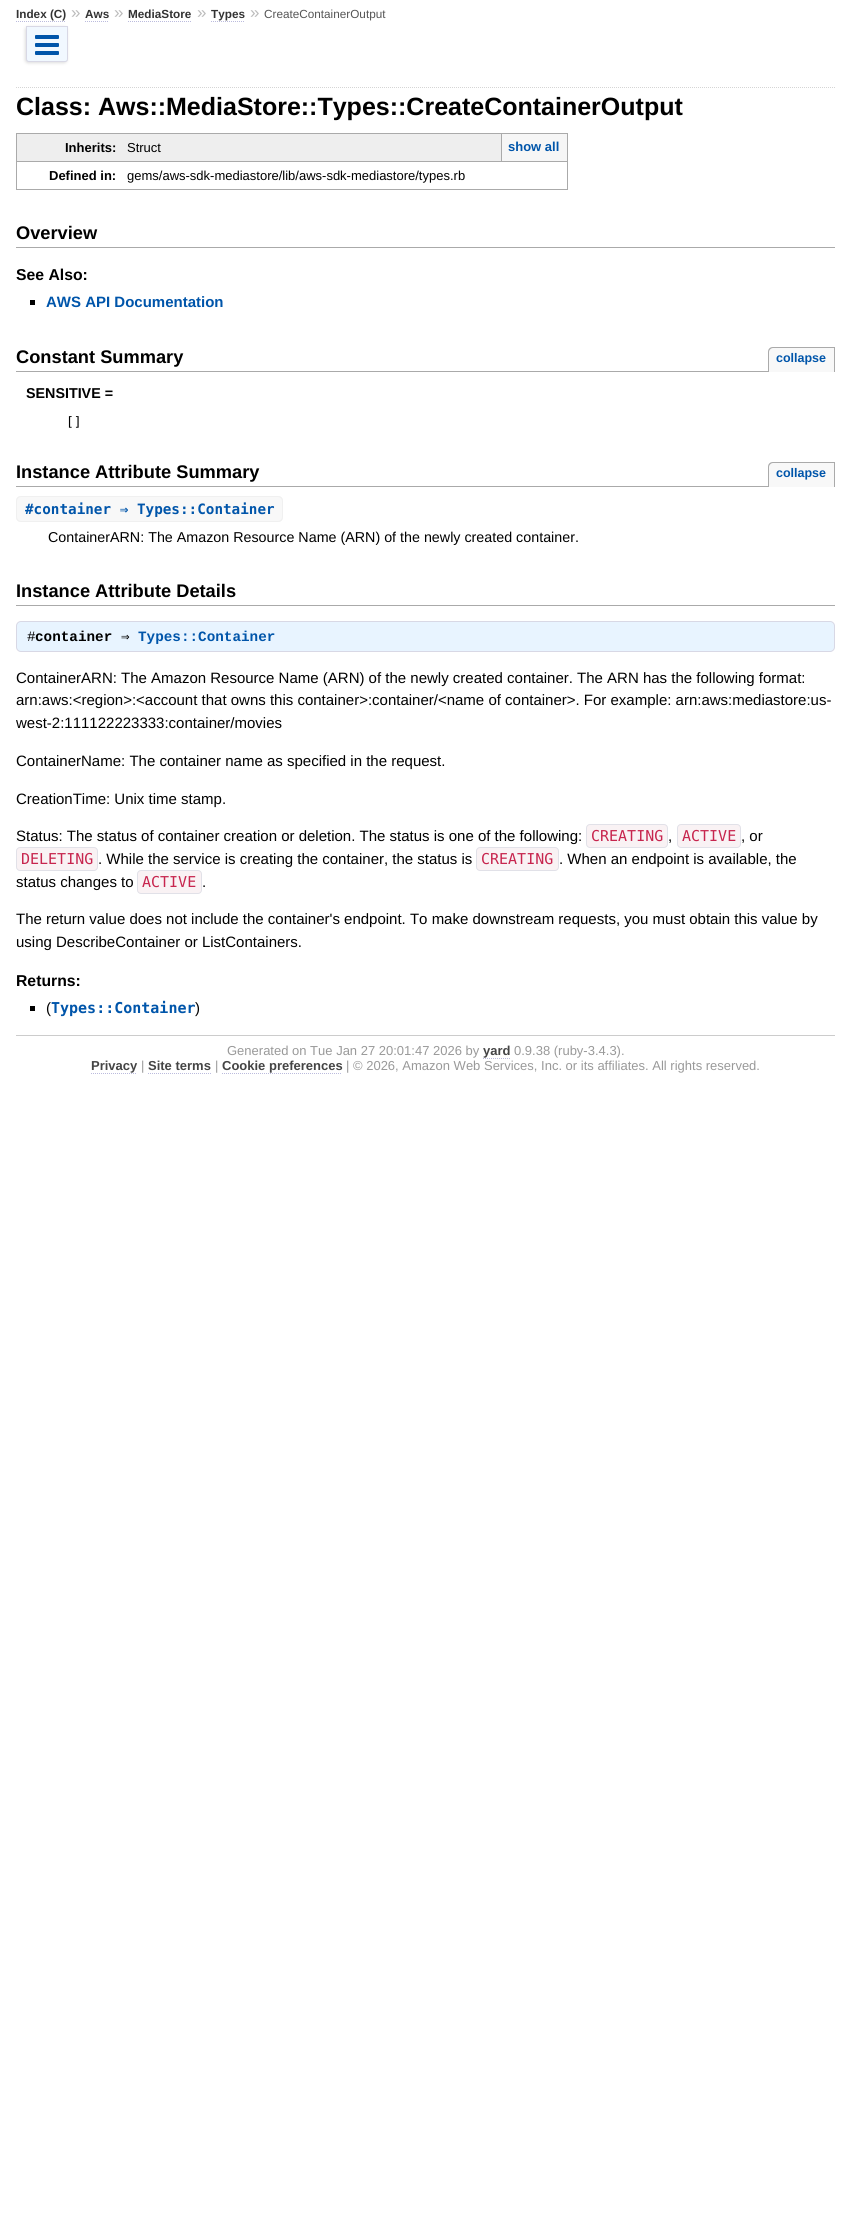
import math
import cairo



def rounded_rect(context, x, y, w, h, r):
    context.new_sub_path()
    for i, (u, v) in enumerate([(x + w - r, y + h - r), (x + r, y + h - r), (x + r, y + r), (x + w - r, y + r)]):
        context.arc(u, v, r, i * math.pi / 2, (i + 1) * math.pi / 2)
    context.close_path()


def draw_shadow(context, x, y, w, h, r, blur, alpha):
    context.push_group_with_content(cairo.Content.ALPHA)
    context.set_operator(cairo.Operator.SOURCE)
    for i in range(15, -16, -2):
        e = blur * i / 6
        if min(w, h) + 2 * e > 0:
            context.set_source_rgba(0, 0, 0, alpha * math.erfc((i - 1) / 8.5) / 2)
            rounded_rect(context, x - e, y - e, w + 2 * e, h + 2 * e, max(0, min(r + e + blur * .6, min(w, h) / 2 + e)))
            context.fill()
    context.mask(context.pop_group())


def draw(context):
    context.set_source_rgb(1, 1, 1)
    context.paint()
    context.set_source_rgb(221 / 255, 221 / 255, 221 / 255)
    draw_shadow(context, 25, 27, 42, 36, 3, 1.5, 1)
    context.new_path()
    context.move_to(16, 21.5)
    context.line_to(66, 21.5)
    context.set_source_rgb(187 / 255, 187 / 255, 221 / 255)
    context.set_line_width(1)
    context.set_dash([1, 1])
    context.stroke()
    context.new_path()
    context.move_to(85, 21.5)
    context.line_to(109, 21.5)
    context.stroke()
    context.new_path()
    context.move_to(128, 21.5)
    context.line_to(192, 21.5)
    context.stroke()
    context.new_path()
    context.move_to(211, 21.5)
    context.line_to(245, 21.5)
    context.stroke()
    context.set_source_rgb(241 / 255, 248 / 255, 1)
    context.new_path()
    context.move_to(26.5, 26.5)
    context.line_to(67.5, 26.5)
    context.line_to(67.5, 59)
    context.curve_to(67.5, 60.5, 66.5, 61.5, 65, 61.5)
    context.line_to(29, 61.5)
    context.curve_to(27.5, 61.5, 26.5, 60.5, 26.5, 59)
    context.close_path()
    context.fill_preserve()
    context.set_source_rgb(216 / 255, 216 / 255, 229 / 255)
    context.set_dash([])
    context.stroke()
    context.set_source_rgb(0, 85 / 255, 170 / 255)
    rounded_rect(context, 35, 35, 24, 4, 1)
    context.fill()
    rounded_rect(context, 35, 43, 24, 4, 1)
    context.fill()
    rounded_rect(context, 35, 51, 24, 4, 1)
    context.fill()
    context.new_path()
    context.move_to(16, 87.5)
    context.line_to(835, 87.5)
    context.set_source_rgb(213 / 255, 213 / 255, 213 / 255)
    context.set_dash([1, 1])
    context.stroke()
    context.set_source_rgb(238 / 255, 238 / 255, 238 / 255)
    context.rectangle(17, 134, 484, 27)
    context.fill()
    context.set_source_rgb(170 / 255, 170 / 255, 170 / 255)
    context.rectangle(16, 133, 552, 1)
    context.fill()
    context.rectangle(16, 133, 1, 28)
    context.fill()
    context.rectangle(16, 161, 552, 1)
    context.fill()
    context.rectangle(567, 133, 1, 57)
    context.fill()
    context.set_source_rgb(246 / 255, 246 / 255, 246 / 255)
    context.rectangle(502, 134, 65, 27)
    context.fill()
    context.set_source_rgb(170 / 255, 170 / 255, 170 / 255)
    context.rectangle(501, 134, 1, 27)
    context.fill()
    context.rectangle(16, 189, 111, 1)
    context.fill()
    context.rectangle(16, 161, 1, 29)
    context.fill()
    context.rectangle(127, 189, 441, 1)
    context.fill()
    context.rectangle(16, 247, 819, 1)
    context.fill()
    context.set_source_rgb(0, 0, 0)
    context.rectangle(30, 300, 5, 5)
    context.fill()
    context.set_source_rgb(170 / 255, 170 / 255, 170 / 255)
    context.rectangle(16, 371, 752, 1)
    context.fill()
    context.set_source_rgb(248 / 255, 248 / 255, 248 / 255)
    context.new_path()
    context.move_to(773, 347)
    context.line_to(835, 347)
    context.line_to(835, 372)
    context.line_to(768, 372)
    context.line_to(768, 352)
    context.curve_to(768, 349, 770, 347, 773, 347)
    context.close_path()
    context.fill()
    context.set_source_rgb(170 / 255, 170 / 255, 170 / 255)
    context.set_fill_rule(cairo.FillRule.EVEN_ODD)
    context.new_path()
    context.move_to(773, 347)
    context.line_to(835, 347)
    context.line_to(835, 372)
    context.line_to(768, 372)
    context.line_to(768, 352)
    context.curve_to(768, 349, 770, 347, 773, 347)
    context.close_path()
    context.move_to(773, 348)
    context.line_to(834, 348)
    context.line_to(834, 372)
    context.line_to(769, 372)
    context.line_to(769, 352)
    context.curve_to(769, 350, 771, 348, 773, 348)
    context.close_path()
    context.fill()
    context.rectangle(16, 486, 752, 1)
    context.fill()
    context.set_source_rgb(248 / 255, 248 / 255, 248 / 255)
    context.new_path()
    context.move_to(773, 462)
    context.line_to(835, 462)
    context.line_to(835, 487)
    context.line_to(768, 487)
    context.line_to(768, 467)
    context.curve_to(768, 464, 770, 462, 773, 462)
    context.close_path()
    context.fill()
    context.set_source_rgb(170 / 255, 170 / 255, 170 / 255)
    context.new_path()
    context.move_to(773, 462)
    context.line_to(835, 462)
    context.line_to(835, 487)
    context.line_to(768, 487)
    context.line_to(768, 467)
    context.curve_to(768, 464, 770, 462, 773, 462)
    context.close_path()
    context.move_to(773, 463)
    context.line_to(834, 463)
    context.line_to(834, 487)
    context.line_to(769, 487)
    context.line_to(769, 467)
    context.curve_to(769, 465, 771, 463, 773, 463)
    context.close_path()
    context.fill()
    context.set_source_rgb(248 / 255, 248 / 255, 248 / 255)
    context.new_path()
    context.move_to(21, 496)
    context.line_to(33, 496)
    context.line_to(33, 522)
    context.line_to(21, 522)
    context.curve_to(18, 522, 16, 520, 16, 517)
    context.line_to(16, 501)
    context.curve_to(16, 498, 18, 496, 21, 496)
    context.close_path()
    context.fill()
    context.set_source_rgb(240 / 255, 240 / 255, 240 / 255)
    context.new_path()
    context.move_to(21, 496)
    context.line_to(33, 496)
    context.line_to(33, 522)
    context.line_to(21, 522)
    context.curve_to(18, 522, 16, 520, 16, 517)
    context.line_to(16, 501)
    context.curve_to(16, 498, 18, 496, 21, 496)
    context.close_path()
    context.move_to(21, 497)
    context.line_to(33, 497)
    context.line_to(33, 521)
    context.line_to(21, 521)
    context.curve_to(19, 521, 17, 519, 17, 517)
    context.line_to(17, 501)
    context.curve_to(17, 499, 19, 497, 21, 497)
    context.close_path()
    context.fill()
    context.set_source_rgb(248 / 255, 248 / 255, 248 / 255)
    context.rectangle(33, 497, 78, 24)
    context.fill()
    context.set_source_rgb(240 / 255, 240 / 255, 240 / 255)
    context.rectangle(33, 496, 78, 1)
    context.fill()
    context.rectangle(33, 521, 78, 1)
    context.fill()
    context.set_source_rgb(248 / 255, 248 / 255, 248 / 255)
    context.new_path()
    context.move_to(111, 496)
    context.line_to(278, 496)
    context.curve_to(281, 496, 283, 498, 283, 501)
    context.line_to(283, 517)
    context.curve_to(283, 520, 281, 522, 278, 522)
    context.line_to(111, 522)
    context.close_path()
    context.fill()
    context.set_source_rgb(240 / 255, 240 / 255, 240 / 255)
    context.new_path()
    context.move_to(111, 496)
    context.line_to(278, 496)
    context.curve_to(281, 496, 283, 498, 283, 501)
    context.line_to(283, 517)
    context.curve_to(283, 520, 281, 522, 278, 522)
    context.line_to(111, 522)
    context.close_path()
    context.move_to(111, 497)
    context.line_to(278, 497)
    context.curve_to(280, 497, 282, 499, 282, 501)
    context.line_to(282, 517)
    context.curve_to(282, 519, 280, 521, 278, 521)
    context.line_to(111, 521)
    context.close_path()
    context.fill()
    context.set_source_rgb(170 / 255, 170 / 255, 170 / 255)
    context.rectangle(16, 605, 819, 1)
    context.fill()
    context.set_source_rgb(232 / 255, 244 / 255, 1)
    rounded_rect(context, 16.5, 621.5, 818, 30, 4.5)
    context.fill_preserve()
    context.set_source_rgb(216 / 255, 216 / 255, 229 / 255)
    context.set_dash([])
    context.stroke()
    context.set_source_rgb(249 / 255, 242 / 255, 244 / 255)
    rounded_rect(context, 586.5, 824.5, 81, 23, 3.5)
    context.fill_preserve()
    context.set_source_rgb(225 / 255, 225 / 255, 232 / 255)
    context.stroke()
    context.set_source_rgb(249 / 255, 242 / 255, 244 / 255)
    rounded_rect(context, 677.5, 824.5, 63, 23, 3.5)
    context.fill_preserve()
    context.set_source_rgb(225 / 255, 225 / 255, 232 / 255)
    context.stroke()
    context.set_source_rgb(249 / 255, 242 / 255, 244 / 255)
    rounded_rect(context, 16.5, 847.5, 81, 23, 3.5)
    context.fill_preserve()
    context.set_source_rgb(225 / 255, 225 / 255, 232 / 255)
    context.stroke()
    context.set_source_rgb(249 / 255, 242 / 255, 244 / 255)
    rounded_rect(context, 476.5, 847.5, 82, 23, 3.5)
    context.fill_preserve()
    context.set_source_rgb(225 / 255, 225 / 255, 232 / 255)
    context.stroke()
    context.set_source_rgb(249 / 255, 242 / 255, 244 / 255)
    rounded_rect(context, 137.5, 870.5, 64, 23, 3.5)
    context.fill_preserve()
    context.set_source_rgb(225 / 255, 225 / 255, 232 / 255)
    context.stroke()
    context.set_source_rgb(0, 0, 0)
    context.rectangle(30, 1006, 5, 5)
    context.fill()
    context.set_source_rgb(204 / 255, 204 / 255, 204 / 255)
    context.rectangle(16, 1035, 819, 1)
    context.fill()
    context.new_path()
    context.move_to(483, 1058.5)
    context.line_to(510, 1058.5)
    context.set_source_rgb(187 / 255, 187 / 255, 221 / 255)
    context.set_dash([1, 1])
    context.stroke()
    context.new_path()
    context.move_to(91, 1073.5)
    context.line_to(137, 1073.5)
    context.stroke()
    context.new_path()
    context.move_to(148, 1073.5)
    context.line_to(211, 1073.5)
    context.stroke()
    context.new_path()
    context.move_to(222, 1073.5)
    context.line_to(342, 1073.5)
    context.stroke()
    context.select_font_face("Liberation Sans", cairo.FontSlant.NORMAL, cairo.FontWeight.BOLD)
    context.set_font_size(11.75)
    context.set_source_rgb(51 / 255, 51 / 255, 51 / 255)
    context.move_to(16, 18)
    context.show_text("Index (C)")
    context.select_font_face("Liberation Sans")
    context.set_font_size(17)
    context.set_source_rgb(187 / 255, 187 / 255, 187 / 255)
    context.move_to(71, 18)
    context.show_text("»")
    context.select_font_face("Liberation Sans", cairo.FontSlant.NORMAL, cairo.FontWeight.BOLD)
    context.set_font_size(11.75)
    context.set_source_rgb(51 / 255, 51 / 255, 51 / 255)
    context.move_to(85, 18)
    context.show_text("Aws")
    context.select_font_face("Liberation Sans")
    context.set_font_size(17)
    context.set_source_rgb(187 / 255, 187 / 255, 187 / 255)
    context.move_to(114, 18)
    context.show_text("»")
    context.select_font_face("Liberation Sans", cairo.FontSlant.NORMAL, cairo.FontWeight.BOLD)
    context.set_font_size(11.75)
    context.set_source_rgb(51 / 255, 51 / 255, 51 / 255)
    context.move_to(128, 18)
    context.show_text("MediaStore")
    context.select_font_face("Liberation Sans")
    context.set_font_size(17)
    context.set_source_rgb(187 / 255, 187 / 255, 187 / 255)
    context.move_to(197, 18)
    context.show_text("»")
    context.select_font_face("Liberation Sans", cairo.FontSlant.NORMAL, cairo.FontWeight.BOLD)
    context.set_font_size(11.75)
    context.set_source_rgb(51 / 255, 51 / 255, 51 / 255)
    context.move_to(211, 18)
    context.show_text("Types")
    context.select_font_face("Liberation Sans")
    context.set_font_size(17)
    context.set_source_rgb(187 / 255, 187 / 255, 187 / 255)
    context.move_to(250, 18)
    context.show_text("»")
    context.set_font_size(11.75)
    context.set_source_rgb(85 / 255, 85 / 255, 85 / 255)
    context.move_to(264, 18)
    context.show_text("CreateContainerOutput")
    context.select_font_face("Liberation Sans", cairo.FontSlant.NORMAL, cairo.FontWeight.BOLD)
    context.set_font_size(25)
    context.set_source_rgb(0, 0, 0)
    context.move_to(16, 115)
    context.show_text("Class: Aws::MediaStore::Types::CreateContainerOutput")
    context.set_font_size(13)
    context.move_to(65, 152)
    context.show_text("Inherits:")
    context.select_font_face("Liberation Sans")
    context.move_to(127, 152)
    context.show_text("Struct")
    context.select_font_face("Liberation Sans", cairo.FontSlant.NORMAL, cairo.FontWeight.BOLD)
    context.set_source_rgb(0, 85 / 255, 170 / 255)
    context.move_to(508, 151)
    context.show_text("show all")
    context.set_source_rgb(0, 0, 0)
    context.move_to(49, 180)
    context.show_text("Defined in:")
    context.select_font_face("Liberation Sans")
    context.move_to(127, 180)
    context.show_text("gems/aws-sdk-mediastore/lib/aws-sdk-mediastore/types.rb")
    context.select_font_face("Liberation Sans", cairo.FontSlant.NORMAL, cairo.FontWeight.BOLD)
    context.set_font_size(18.25)
    context.move_to(16, 239)
    context.show_text("Overview")
    context.set_font_size(15.75)
    context.move_to(16, 280)
    context.show_text("See Also:")
    context.set_font_size(15)
    context.set_source_rgb(0, 85 / 255, 170 / 255)
    context.move_to(46, 307)
    context.show_text("AWS API Documentation")
    context.set_font_size(18.25)
    context.set_source_rgb(0, 0, 0)
    context.move_to(16, 363)
    context.show_text("Constant Summary")
    context.set_font_size(12.5)
    context.set_source_rgb(0, 85 / 255, 170 / 255)
    context.move_to(776, 362)
    context.show_text("collapse")
    context.set_font_size(14.3)
    context.set_source_rgb(0, 0, 0)
    context.move_to(26, 398)
    context.show_text("SENSITIVE =")
    context.select_font_face("DejaVu Sans Mono")
    context.set_font_size(13)
    context.move_to(66, 426)
    context.show_text("[]")
    context.select_font_face("Liberation Sans", cairo.FontSlant.NORMAL, cairo.FontWeight.BOLD)
    context.set_font_size(18.25)
    context.move_to(16, 478)
    context.show_text("Instance Attribute Summary")
    context.set_font_size(12.5)
    context.set_source_rgb(0, 85 / 255, 170 / 255)
    context.move_to(776, 477)
    context.show_text("collapse")
    context.select_font_face("DejaVu Sans Mono", cairo.FontSlant.NORMAL, cairo.FontWeight.BOLD)
    context.set_font_size(14.3)
    context.move_to(25, 514)
    context.show_text("#container ⇒ Types::Container")
    context.select_font_face("Liberation Sans")
    context.set_source_rgb(0, 0, 0)
    context.move_to(48, 542)
    context.show_text("ContainerARN: The Amazon Resource Name (ARN) of the newly created container.")
    context.select_font_face("Liberation Sans", cairo.FontSlant.NORMAL, cairo.FontWeight.BOLD)
    context.set_font_size(18.25)
    context.move_to(16, 597)
    context.show_text("Instance Attribute Details")
    context.select_font_face("Liberation Mono")
    context.set_font_size(14.3)
    context.move_to(27, 641)
    context.show_text("#")
    context.select_font_face("Liberation Mono", cairo.FontSlant.NORMAL, cairo.FontWeight.BOLD)
    context.move_to(35, 641)
    context.show_text("container")
    context.select_font_face("DejaVu Sans Mono")
    context.move_to(121, 641)
    context.show_text("⇒")
    context.select_font_face("Liberation Mono", cairo.FontSlant.NORMAL, cairo.FontWeight.BOLD)
    context.set_source_rgb(0, 85 / 255, 170 / 255)
    context.move_to(138, 641)
    context.show_text("Types::Container")
    context.select_font_face("Liberation Sans")
    context.set_font_size(15)
    context.set_source_rgb(0, 0, 0)
    context.move_to(16, 683)
    context.show_text("ContainerARN: The Amazon Resource Name (ARN) of the newly created container. The ARN has the following format:")
    context.move_to(16, 705)
    context.show_text("arn:aws:<region>:<account that owns this container>:container/<name of container>. For example: arn:aws:mediastore:us-")
    context.move_to(16, 728)
    context.show_text("west-2:111122223333:container/movies")
    context.move_to(16, 766)
    context.show_text("ContainerName: The container name as specified in the request.")
    context.move_to(16, 804)
    context.show_text("CreationTime: Unix time stamp.")
    context.move_to(16, 841)
    context.show_text("Status: The status of container creation or deletion. The status is one of the following:")
    context.select_font_face("DejaVu Sans Mono")
    context.set_source_rgb(199 / 255, 37 / 255, 78 / 255)
    context.move_to(591, 841)
    context.show_text("CREATING")
    context.select_font_face("Liberation Sans")
    context.set_source_rgb(0, 0, 0)
    context.move_to(668, 841)
    context.show_text(",")
    context.select_font_face("DejaVu Sans Mono")
    context.set_source_rgb(199 / 255, 37 / 255, 78 / 255)
    context.move_to(682, 841)
    context.show_text("ACTIVE")
    context.select_font_face("Liberation Sans")
    context.set_source_rgb(0, 0, 0)
    context.move_to(741, 841)
    context.show_text(", or")
    context.select_font_face("DejaVu Sans Mono")
    context.set_source_rgb(199 / 255, 37 / 255, 78 / 255)
    context.move_to(21, 864)
    context.show_text("DELETING")
    context.select_font_face("Liberation Sans")
    context.set_source_rgb(0, 0, 0)
    context.move_to(98, 864)
    context.show_text(". While the service is creating the container, the status is")
    context.select_font_face("DejaVu Sans Mono")
    context.set_source_rgb(199 / 255, 37 / 255, 78 / 255)
    context.move_to(481, 864)
    context.show_text("CREATING")
    context.select_font_face("Liberation Sans")
    context.set_source_rgb(0, 0, 0)
    context.move_to(559, 864)
    context.show_text(". When an endpoint is available, the")
    context.move_to(16, 887)
    context.show_text("status changes to")
    context.select_font_face("DejaVu Sans Mono")
    context.set_source_rgb(199 / 255, 37 / 255, 78 / 255)
    context.move_to(142, 887)
    context.show_text("ACTIVE")
    context.select_font_face("Liberation Sans")
    context.set_source_rgb(0, 0, 0)
    context.move_to(202, 887)
    context.show_text(".")
    context.move_to(16, 924)
    context.show_text("The return value does not include the container's endpoint. To make downstream requests, you must obtain this value by")
    context.move_to(16, 947)
    context.show_text("using DescribeContainer or ListContainers.")
    context.select_font_face("Liberation Sans", cairo.FontSlant.NORMAL, cairo.FontWeight.BOLD)
    context.set_font_size(15.75)
    context.move_to(16, 986)
    context.show_text("Returns:")
    context.select_font_face("Liberation Sans")
    context.set_font_size(15)
    context.move_to(46, 1013)
    context.show_text("(")
    context.select_font_face("DejaVu Sans Mono", cairo.FontSlant.NORMAL, cairo.FontWeight.BOLD)
    context.set_source_rgb(0, 85 / 255, 170 / 255)
    context.move_to(51, 1013)
    context.show_text("Types::Container")
    context.select_font_face("Liberation Sans")
    context.set_source_rgb(0, 0, 0)
    context.move_to(195, 1013)
    context.show_text(")")
    context.set_font_size(13)
    context.set_source_rgb(153 / 255, 153 / 255, 153 / 255)
    context.move_to(227, 1055)
    context.show_text("Generated on Tue Jan 27 20:01:47 2026 by")
    context.select_font_face("Liberation Sans", cairo.FontSlant.NORMAL, cairo.FontWeight.BOLD)
    context.set_source_rgb(68 / 255, 68 / 255, 68 / 255)
    context.move_to(483, 1055)
    context.show_text("yard")
    context.select_font_face("Liberation Sans")
    context.set_source_rgb(153 / 255, 153 / 255, 153 / 255)
    context.move_to(514, 1055)
    context.show_text("0.9.38 (ruby-3.4.3).")
    context.select_font_face("Liberation Sans", cairo.FontSlant.NORMAL, cairo.FontWeight.BOLD)
    context.set_source_rgb(68 / 255, 68 / 255, 68 / 255)
    context.move_to(91, 1070)
    context.show_text("Privacy")
    context.select_font_face("Liberation Sans")
    context.set_source_rgb(153 / 255, 153 / 255, 153 / 255)
    context.move_to(141, 1070)
    context.show_text("|")
    context.select_font_face("Liberation Sans", cairo.FontSlant.NORMAL, cairo.FontWeight.BOLD)
    context.set_source_rgb(68 / 255, 68 / 255, 68 / 255)
    context.move_to(148, 1070)
    context.show_text("Site terms")
    context.select_font_face("Liberation Sans")
    context.set_source_rgb(153 / 255, 153 / 255, 153 / 255)
    context.move_to(215, 1070)
    context.show_text("|")
    context.select_font_face("Liberation Sans", cairo.FontSlant.NORMAL, cairo.FontWeight.BOLD)
    context.set_source_rgb(68 / 255, 68 / 255, 68 / 255)
    context.move_to(222, 1070)
    context.show_text("Cookie preferences")
    context.select_font_face("Liberation Sans")
    context.set_source_rgb(153 / 255, 153 / 255, 153 / 255)
    context.move_to(346, 1070)
    context.show_text("| © 2026, Amazon Web Services, Inc. or its affiliates. All rights reserved.")


surface = cairo.ImageSurface(cairo.Format.RGB24, 851, 2229)
context = cairo.Context(surface)
options = cairo.FontOptions()
options.set_hint_metrics(cairo.HintMetrics.OFF)
options.set_hint_style(cairo.HintStyle.NONE)
context.set_font_options(options)
context.set_miter_limit(4)
draw(context)
surface.write_to_png("out.png")
